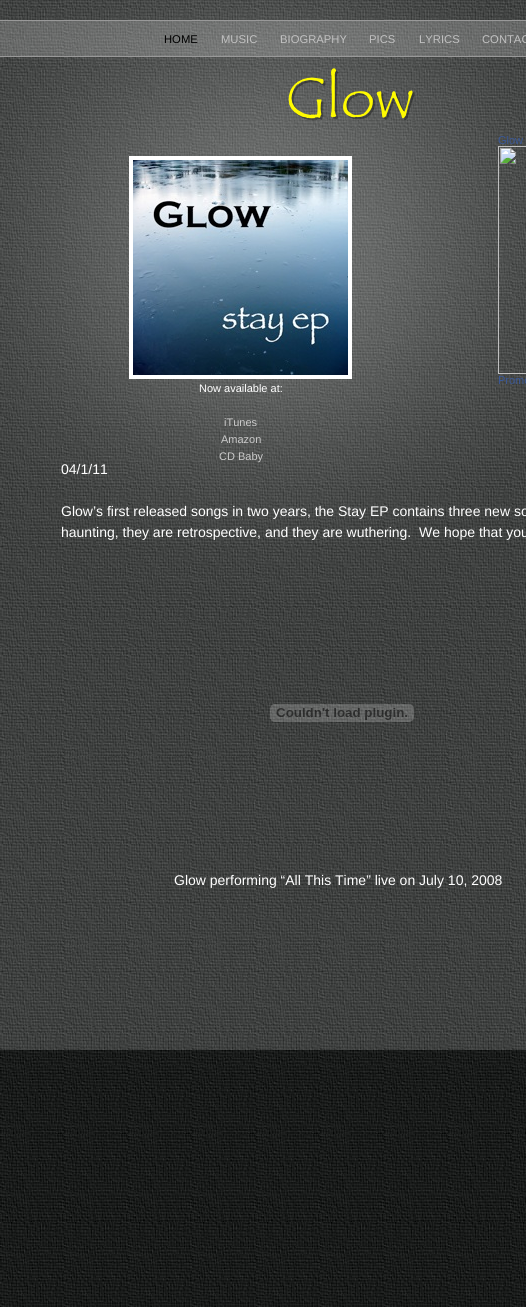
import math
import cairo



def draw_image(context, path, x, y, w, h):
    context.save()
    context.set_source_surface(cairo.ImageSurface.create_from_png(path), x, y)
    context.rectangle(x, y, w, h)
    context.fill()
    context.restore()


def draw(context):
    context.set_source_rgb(1, 1, 1)
    context.paint()
    draw_image(context, "images/1.png", 0, 1050, 526, 257)
    draw_image(context, "images/2.png", 0, 620, 526, 430)
    draw_image(context, "images/3.png", 0, 0, 526, 620)
    context.set_source_rgba(1, 1, 1, 0.2)
    context.rectangle(0, 21, 526, 35)
    context.fill()
    context.set_source_rgb(153 / 255, 153 / 255, 153 / 255)
    context.rectangle(0, 20, 526, 1)
    context.fill()
    context.rectangle(0, 56, 526, 1)
    context.fill()
    draw_image(context, "images/4.png", 288, 68, 127, 53)
    context.set_source_rgb(1, 1, 1)
    context.rectangle(129, 156, 4, 219)
    context.fill()
    context.rectangle(133, 156, 219, 4)
    context.fill()
    draw_image(context, "images/5.png", 133, 160, 215, 215)
    context.rectangle(348, 160, 4, 219)
    context.fill()
    context.rectangle(129, 375, 219, 4)
    context.fill()
    draw_image(context, "images/6.png", 498, 136, 28, 248)
    draw_image(context, "images/7.png", 270, 704, 144, 18)
    context.select_font_face("Liberation Sans")
    context.set_font_size(11.25)
    context.set_source_rgb(0, 0, 0)
    context.move_to(164, 43)
    context.show_text("HOME")
    context.set_source_rgb(193 / 255, 193 / 255, 193 / 255)
    context.move_to(221, 43)
    context.show_text("MUSIC")
    context.move_to(280, 43)
    context.show_text("BIOGRAPHY")
    context.move_to(369, 43)
    context.show_text("PICS")
    context.move_to(419, 43)
    context.show_text("LYRICS")
    context.move_to(482, 43)
    context.show_text("CONTAC")
    context.set_font_size(11)
    context.set_source_rgb(1, 1, 1)
    context.move_to(199, 392)
    context.show_text("Now available at:")
    context.set_source_rgb(203 / 255, 203 / 255, 203 / 255)
    context.move_to(224, 426)
    context.show_text("iTunes")
    context.move_to(221, 443)
    context.show_text("Amazon")
    context.move_to(219, 460)
    context.show_text("CD Baby")
    context.set_font_size(14)
    context.set_source_rgb(1, 1, 1)
    context.move_to(61, 474)
    context.show_text("04/1/11")
    context.move_to(61, 516)
    context.show_text("Glow’s first released songs in two years, the Stay EP contains three new so")
    context.move_to(61, 537)
    context.show_text("haunting, they are retrospective, and they are wuthering.  We hope that you")
    context.move_to(174, 885)
    context.show_text("Glow performing “All This Time” live on July 10, 2008")


surface = cairo.ImageSurface(cairo.Format.RGB24, 526, 1307)
context = cairo.Context(surface)
options = cairo.FontOptions()
options.set_hint_metrics(cairo.HintMetrics.OFF)
options.set_hint_style(cairo.HintStyle.NONE)
context.set_font_options(options)
context.set_miter_limit(4)
draw(context)
surface.write_to_png("out.png")
